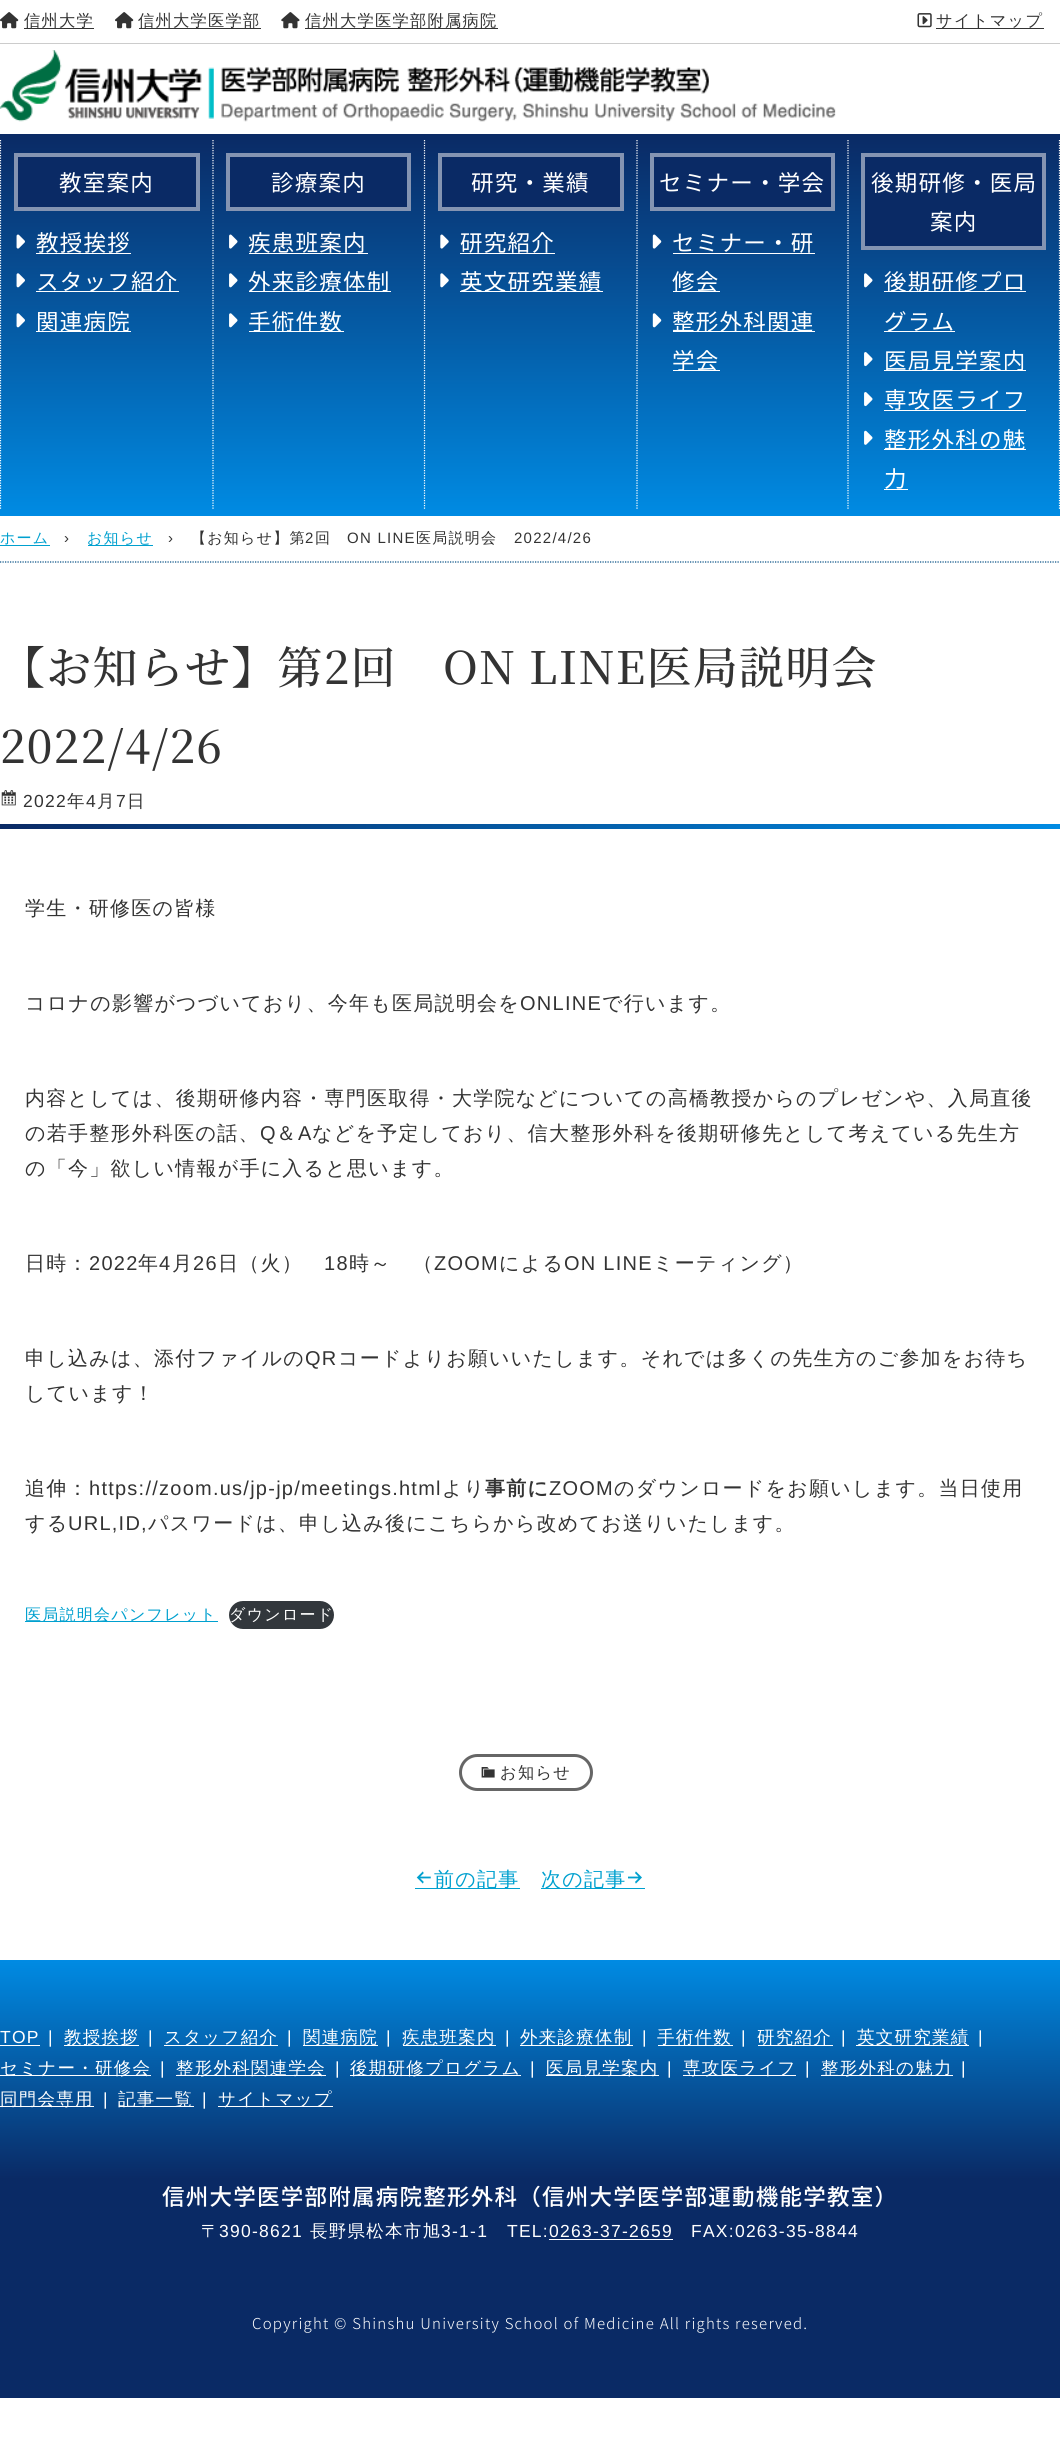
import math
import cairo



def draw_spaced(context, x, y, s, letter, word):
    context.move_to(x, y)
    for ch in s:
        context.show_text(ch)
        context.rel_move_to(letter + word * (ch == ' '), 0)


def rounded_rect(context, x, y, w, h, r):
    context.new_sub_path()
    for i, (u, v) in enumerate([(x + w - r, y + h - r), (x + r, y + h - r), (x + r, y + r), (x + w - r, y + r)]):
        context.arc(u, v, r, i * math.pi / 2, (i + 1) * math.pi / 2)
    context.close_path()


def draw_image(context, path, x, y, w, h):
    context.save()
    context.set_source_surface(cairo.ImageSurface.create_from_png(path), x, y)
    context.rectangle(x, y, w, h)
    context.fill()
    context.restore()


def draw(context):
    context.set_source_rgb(1, 1, 1)
    context.paint()
    context.set_source_rgb(204 / 255, 204 / 255, 204 / 255)
    context.rectangle(0, 43, 1060, 1)
    context.fill()
    draw_image(context, "images/1.png", 0, 12, 19, 17)
    context.set_source_rgb(51 / 255, 51 / 255, 51 / 255)
    context.rectangle(24, 28, 70, 1)
    context.fill()
    draw_image(context, "images/1.png", 115, 12, 19, 17)
    context.rectangle(139, 28, 122, 1)
    context.fill()
    draw_image(context, "images/2.png", 281, 12, 19, 17)
    context.rectangle(305, 28, 193, 1)
    context.fill()
    draw_image(context, "images/3.png", 917, 13, 15, 15)
    context.rectangle(936, 28, 108, 1)
    context.fill()
    draw_image(context, "images/4.png", 0, 50, 836, 72)
    gradient = cairo.LinearGradient(530, 134, 530, 516)
    gradient.add_color_stop_rgba(0, 10 / 255, 42 / 255, 101 / 255, 1)
    gradient.add_color_stop_rgba(1, 0, 139 / 255, 227 / 255, 1)
    context.set_source(gradient)
    context.rectangle(0, 134, 1060, 382)
    context.fill()
    context.new_path()
    context.move_to(0.5, 140)
    context.line_to(0.5, 510)
    context.set_source_rgb(1, 1, 1)
    context.set_line_width(1.2)
    context.set_dash([1.25, 1.25])
    context.stroke()
    context.set_source_rgb(10 / 255, 42 / 255, 101 / 255)
    context.rectangle(16, 155, 182, 54)
    context.fill_preserve()
    context.set_source_rgb(132 / 255, 148 / 255, 178 / 255)
    context.set_line_width(4)
    context.set_dash([])
    context.stroke()
    draw_image(context, "images/5.png", 16, 234, 9, 15)
    context.set_source_rgb(1, 1, 1)
    context.rectangle(36, 253, 95, 1)
    context.fill()
    draw_image(context, "images/6.png", 16, 273, 9, 15)
    context.rectangle(36, 291, 143, 1)
    context.fill()
    draw_image(context, "images/7.png", 16, 313, 9, 15)
    context.rectangle(36, 331, 95, 1)
    context.fill()
    context.new_path()
    context.move_to(213, 140)
    context.line_to(213, 510)
    context.set_line_width(1.2)
    context.set_dash([1.25, 1.25])
    context.stroke()
    context.set_source_rgb(10 / 255, 42 / 255, 101 / 255)
    context.rectangle(228, 155, 181, 54)
    context.fill_preserve()
    context.set_source_rgb(132 / 255, 148 / 255, 178 / 255)
    context.set_line_width(4)
    context.set_dash([])
    context.stroke()
    draw_image(context, "images/8.png", 229, 234, 9, 15)
    context.set_source_rgb(1, 1, 1)
    context.rectangle(249, 253, 119, 1)
    context.fill()
    draw_image(context, "images/9.png", 229, 273, 9, 15)
    context.rectangle(249, 291, 142, 1)
    context.fill()
    draw_image(context, "images/10.png", 229, 313, 9, 15)
    context.rectangle(249, 331, 95, 1)
    context.fill()
    context.new_path()
    context.move_to(424.5, 140)
    context.line_to(424.5, 510)
    context.set_line_width(1.2)
    context.set_dash([1.25, 1.25])
    context.stroke()
    context.set_source_rgb(10 / 255, 42 / 255, 101 / 255)
    context.rectangle(440, 155, 182, 54)
    context.fill_preserve()
    context.set_source_rgb(132 / 255, 148 / 255, 178 / 255)
    context.set_line_width(4)
    context.set_dash([])
    context.stroke()
    draw_image(context, "images/11.png", 440, 234, 9, 15)
    context.set_source_rgb(1, 1, 1)
    context.rectangle(460, 253, 95, 1)
    context.fill()
    draw_image(context, "images/12.png", 440, 273, 9, 15)
    context.rectangle(460, 291, 143, 1)
    context.fill()
    context.new_path()
    context.move_to(637, 140)
    context.line_to(637, 510)
    context.set_line_width(1.2)
    context.set_dash([1.25, 1.25])
    context.stroke()
    context.set_source_rgb(10 / 255, 42 / 255, 101 / 255)
    context.rectangle(652, 155, 181, 54)
    context.fill_preserve()
    context.set_source_rgb(132 / 255, 148 / 255, 178 / 255)
    context.set_line_width(4)
    context.set_dash([])
    context.stroke()
    draw_image(context, "images/13.png", 652, 234, 10, 15)
    context.set_source_rgb(1, 1, 1)
    context.rectangle(673, 253, 142, 1)
    context.fill()
    context.rectangle(673, 291, 47, 1)
    context.fill()
    draw_image(context, "images/14.png", 652, 313, 10, 15)
    context.rectangle(673, 331, 142, 1)
    context.fill()
    context.rectangle(673, 370, 47, 1)
    context.fill()
    context.new_path()
    context.move_to(1059.5, 140)
    context.line_to(1059.5, 510)
    context.set_line_width(1.2)
    context.set_dash([1.25, 1.25])
    context.stroke()
    context.new_path()
    context.move_to(848, 140)
    context.line_to(848, 510)
    context.stroke()
    context.set_source_rgb(10 / 255, 42 / 255, 101 / 255)
    context.rectangle(863, 155, 181, 93)
    context.fill_preserve()
    context.set_source_rgb(132 / 255, 148 / 255, 178 / 255)
    context.set_line_width(4)
    context.set_dash([])
    context.stroke()
    draw_image(context, "images/9.png", 864, 273, 9, 15)
    context.set_source_rgb(1, 1, 1)
    context.rectangle(884, 291, 142, 1)
    context.fill()
    context.rectangle(884, 331, 71, 1)
    context.fill()
    draw_image(context, "images/15.png", 864, 352, 9, 15)
    context.rectangle(884, 370, 142, 1)
    context.fill()
    draw_image(context, "images/16.png", 864, 392, 9, 15)
    context.rectangle(884, 410, 142, 1)
    context.fill()
    draw_image(context, "images/17.png", 864, 430, 9, 15)
    context.rectangle(884, 449, 142, 1)
    context.fill()
    context.rectangle(884, 489, 24, 1)
    context.fill()
    context.new_path()
    context.move_to(0, 562)
    context.line_to(1060, 562)
    context.set_source_rgb(0, 77 / 255, 130 / 255)
    context.set_line_width(1.2)
    context.set_dash([1.25, 1.25])
    context.stroke()
    context.set_source_rgb(0, 160 / 255, 207 / 255)
    context.rectangle(0, 545, 50, 1)
    context.fill()
    context.rectangle(88, 545, 65, 1)
    context.fill()
    draw_image(context, "images/18.png", 1, 790, 15, 16)
    gradient = cairo.LinearGradient(0, 826, 1060, 826)
    gradient.add_color_stop_rgba(0, 10 / 255, 42 / 255, 101 / 255, 1)
    gradient.add_color_stop_rgba(1, 0, 139 / 255, 227 / 255, 1)
    context.set_source(gradient)
    context.rectangle(0, 824, 1060, 5)
    context.fill()
    context.set_source_rgb(0, 160 / 255, 207 / 255)
    context.rectangle(25, 1621, 193, 1)
    context.fill()
    context.set_source_rgb(50 / 255, 55 / 255, 60 / 255)
    rounded_rect(context, 229, 1601, 105, 28, 14)
    context.fill()
    rounded_rect(context, 460.5, 1755.5, 131, 34, 17)
    context.set_source_rgb(102 / 255, 102 / 255, 102 / 255)
    context.set_line_width(3)
    context.set_dash([])
    context.stroke()
    draw_image(context, "images/19.png", 481, 1767, 14, 11)
    draw_image(context, "images/20.png", 416, 1871, 15, 13)
    context.set_source_rgb(0, 160 / 255, 207 / 255)
    context.rectangle(415, 1888, 105, 1)
    context.fill()
    context.rectangle(541, 1888, 104, 1)
    context.fill()
    draw_image(context, "images/21.png", 628, 1871, 14, 13)
    gradient = cairo.LinearGradient(530, 1960, 530, 2398)
    gradient.add_color_stop_rgba(0, 0, 139 / 255, 227 / 255, 1)
    gradient.add_color_stop_rgba(0.5, 10 / 255, 42 / 255, 101 / 255, 1)
    context.set_source(gradient)
    context.rectangle(0, 1960, 1060, 438)
    context.fill()
    context.set_source_rgb(1, 1, 1)
    context.rectangle(0, 2045, 40, 1)
    context.fill()
    context.rectangle(64, 2045, 75, 1)
    context.fill()
    context.rectangle(164, 2045, 114, 1)
    context.fill()
    context.rectangle(303, 2045, 75, 1)
    context.fill()
    context.rectangle(403, 2045, 93, 1)
    context.fill()
    context.rectangle(520, 2045, 113, 1)
    context.fill()
    context.rectangle(658, 2045, 75, 1)
    context.fill()
    context.rectangle(758, 2045, 75, 1)
    context.fill()
    context.rectangle(856, 2045, 113, 1)
    context.fill()
    context.rectangle(0, 2075, 151, 1)
    context.fill()
    context.rectangle(176, 2075, 150, 1)
    context.fill()
    context.rectangle(350, 2075, 171, 1)
    context.fill()
    context.rectangle(546, 2075, 113, 1)
    context.fill()
    context.rectangle(683, 2075, 113, 1)
    context.fill()
    context.rectangle(821, 2075, 132, 1)
    context.fill()
    context.rectangle(0, 2106, 94, 1)
    context.fill()
    context.rectangle(119, 2106, 75, 1)
    context.fill()
    context.rectangle(218, 2106, 115, 1)
    context.fill()
    context.rectangle(549, 2239, 124, 1)
    context.fill()
    context.select_font_face("WenQuanYi Zen Hei Medium")
    context.set_font_size(16.25)
    context.set_source_rgb(51 / 255, 51 / 255, 51 / 255)
    draw_spaced(context, 24, 26, "信州大学", 1.25, 0)
    draw_spaced(context, 138, 26, "信州大学医学部", 1.25, 0)
    draw_spaced(context, 305, 26, "信州大学医学部附属病院", 1.25, 0)
    draw_spaced(context, 936, 26, "サイトマップ", 1.25, 0)
    context.select_font_face("Noto Sans JP")
    context.set_font_size(22.5)
    context.set_source_rgb(1, 1, 1)
    draw_spaced(context, 59, 191, "教室案内", 1.25, 0)
    draw_spaced(context, 36, 251, "教授挨拶", 1.25, 0)
    draw_spaced(context, 36, 290, "スタッフ紹介", 1.25, 0)
    draw_spaced(context, 36, 330, "関連病院", 1.25, 0)
    draw_spaced(context, 271, 191, "診療案内", 1.25, 0)
    draw_spaced(context, 248, 251, "疾患班案内", 1.25, 0)
    draw_spaced(context, 248, 290, "外来診療体制", 1.25, 0)
    draw_spaced(context, 248, 330, "手術件数", 1.25, 0)
    draw_spaced(context, 471, 191, "研究・業績", 1.25, 0)
    draw_spaced(context, 460, 251, "研究紹介", 1.25, 0)
    draw_spaced(context, 460, 290, "英文研究業績", 1.25, 0)
    draw_spaced(context, 659, 191, "セミナー・学会", 1.25, 0)
    draw_spaced(context, 672, 251, "セミナー・研", 1.25, 0)
    draw_spaced(context, 672, 290, "修会", 1.25, 0)
    draw_spaced(context, 672, 330, "整形外科関連", 1.25, 0)
    draw_spaced(context, 672, 369, "学会", 1.25, 0)
    draw_spaced(context, 871, 191, "後期研修・医局", 1.25, 0)
    draw_spaced(context, 930, 230, "案内", 1.25, 0)
    draw_spaced(context, 884, 290, "後期研修プロ", 1.25, 0)
    draw_spaced(context, 884, 330, "グラム", 1.25, 0)
    draw_spaced(context, 884, 369, "医局見学案内", 1.25, 0)
    draw_spaced(context, 884, 408, "専攻医ライフ", 1.25, 0)
    draw_spaced(context, 884, 448, "整形外科の魅", 1.25, 0)
    draw_spaced(context, 884, 487, "力", 1.25, 0)
    context.select_font_face("WenQuanYi Zen Hei Medium")
    context.set_font_size(15)
    context.set_source_rgb(0, 160 / 255, 207 / 255)
    draw_spaced(context, 0, 543, "ホーム", 1.25, 0)
    context.select_font_face("Liberation Sans")
    context.set_source_rgb(51 / 255, 51 / 255, 51 / 255)
    draw_spaced(context, 64, 543, "›", 1.25, 0)
    context.select_font_face("WenQuanYi Zen Hei Medium")
    context.set_source_rgb(0, 160 / 255, 207 / 255)
    draw_spaced(context, 87, 543, "お知らせ", 1.25, 0)
    context.select_font_face("Liberation Sans")
    context.set_source_rgb(51 / 255, 51 / 255, 51 / 255)
    draw_spaced(context, 168, 543, "›", 1.25, 0)
    context.select_font_face("WenQuanYi Zen Hei Medium")
    draw_spaced(context, 191, 543, "【お知らせ】第", 1.25, 0)
    context.select_font_face("Liberation Sans")
    draw_spaced(context, 305, 543, "2", 1.25, 0)
    context.select_font_face("WenQuanYi Zen Hei Medium")
    draw_spaced(context, 315, 543, "回", 1.25, 0)
    context.select_font_face("Liberation Sans")
    draw_spaced(context, 347, 543, "ON LINE", 1.25, 0)
    context.select_font_face("WenQuanYi Zen Hei Medium")
    draw_spaced(context, 416, 543, "医局説明会", 1.25, 0)
    context.select_font_face("Liberation Sans")
    draw_spaced(context, 514, 543, "2022/4/26", 1.25, 0)
    context.select_font_face("Noto Serif JP Medium")
    context.set_font_size(45)
    draw_spaced(context, 0, 684, "【お知らせ】第2回　ON LINE医局説明会", 1.25, 0)
    draw_spaced(context, 0, 763, "2022/4/26", 1.25, 0)
    context.select_font_face("Liberation Sans")
    context.set_font_size(17.5)
    draw_spaced(context, 23, 807, "2022", 1.25, 0)
    context.select_font_face("WenQuanYi Zen Hei Medium")
    draw_spaced(context, 67, 807, "年", 1.25, 0)
    context.select_font_face("Liberation Sans")
    draw_spaced(context, 86, 807, "4", 1.25, 0)
    context.select_font_face("WenQuanYi Zen Hei Medium")
    draw_spaced(context, 97, 807, "月", 1.25, 0)
    context.select_font_face("Liberation Sans")
    draw_spaced(context, 116, 807, "7", 1.25, 0)
    context.select_font_face("WenQuanYi Zen Hei Medium")
    draw_spaced(context, 127, 807, "日", 1.25, 0)
    context.set_font_size(20)
    draw_spaced(context, 25, 915, "学生・研修医の皆様", 1.25, 0)
    draw_spaced(context, 25, 1010, "コロナの影響がつづいており、今年も医局説明会を", 1.25, 0)
    context.select_font_face("Liberation Sans")
    draw_spaced(context, 520, 1010, "ONLINE", 1.25, 0)
    context.select_font_face("WenQuanYi Zen Hei Medium")
    draw_spaced(context, 602, 1010, "で行います。", 1.25, 0)
    draw_spaced(context, 25, 1105, "内容としては、後期研修内容・専門医取得・大学院などについての高橋教授からのプレゼンや、入局直後", 1.25, 0)
    draw_spaced(context, 25, 1140, "の若手整形外科医の話、", 1.25, 0)
    context.select_font_face("Liberation Sans")
    draw_spaced(context, 260, 1140, "Q", 1.25, 0)
    context.select_font_face("WenQuanYi Zen Hei Medium")
    draw_spaced(context, 276, 1140, "＆", 1.25, 0)
    context.select_font_face("Liberation Sans")
    draw_spaced(context, 298, 1140, "A", 1.25, 0)
    context.select_font_face("WenQuanYi Zen Hei Medium")
    draw_spaced(context, 312, 1140, "などを予定しており、信大整形外科を後期研修先として考えている先生方", 1.25, 0)
    draw_spaced(context, 25, 1175, "の「今」欲しい情報が手に入ると思います。", 1.25, 0)
    draw_spaced(context, 25, 1270, "日時：", 1.25, 0)
    context.select_font_face("Liberation Sans")
    draw_spaced(context, 89, 1270, "2022", 1.25, 0)
    context.select_font_face("WenQuanYi Zen Hei Medium")
    draw_spaced(context, 138, 1270, "年", 1.25, 0)
    context.select_font_face("Liberation Sans")
    draw_spaced(context, 159, 1270, "4", 1.25, 0)
    context.select_font_face("WenQuanYi Zen Hei Medium")
    draw_spaced(context, 172, 1270, "月", 1.25, 0)
    context.select_font_face("Liberation Sans")
    draw_spaced(context, 193, 1270, "26", 1.25, 0)
    context.select_font_face("WenQuanYi Zen Hei Medium")
    draw_spaced(context, 218, 1270, "日（火）", 1.25, 0)
    context.select_font_face("Liberation Sans")
    draw_spaced(context, 324, 1270, "18", 1.25, 0)
    context.select_font_face("WenQuanYi Zen Hei Medium")
    draw_spaced(context, 349, 1270, "時～　（", 1.25, 0)
    context.select_font_face("Liberation Sans")
    draw_spaced(context, 434, 1270, "ZOOM", 1.25, 0)
    context.select_font_face("WenQuanYi Zen Hei Medium")
    draw_spaced(context, 499, 1270, "による", 1.25, 0)
    context.select_font_face("Liberation Sans")
    draw_spaced(context, 564, 1270, "ON LINE", 1.25, 0)
    context.select_font_face("WenQuanYi Zen Hei Medium")
    draw_spaced(context, 653, 1270, "ミーティング）", 1.25, 0)
    draw_spaced(context, 25, 1365, "申し込みは、添付ファイルの", 1.25, 0)
    context.select_font_face("Liberation Sans")
    draw_spaced(context, 305, 1365, "QR", 1.25, 0)
    context.select_font_face("WenQuanYi Zen Hei Medium")
    draw_spaced(context, 338, 1365, "コードよりお願いいたします。それでは多くの先生方のご参加をお待ち", 1.25, 0)
    draw_spaced(context, 25, 1400, "しています！", 1.25, 0)
    draw_spaced(context, 25, 1495, "追伸：", 1.25, 0)
    context.select_font_face("Liberation Sans")
    draw_spaced(context, 89, 1495, "https://zoom.us/jp-jp/meetings.html", 1.25, 0)
    context.select_font_face("WenQuanYi Zen Hei Medium")
    draw_spaced(context, 442, 1495, "より", 1.25, 0)
    context.select_font_face("WenQuanYi Zen Hei", cairo.FontSlant.NORMAL, cairo.FontWeight.BOLD)
    draw_spaced(context, 485, 1495, "事前に", 1.25, 0)
    context.select_font_face("Liberation Sans")
    draw_spaced(context, 549, 1495, "ZOOM", 1.25, 0)
    context.select_font_face("WenQuanYi Zen Hei Medium")
    draw_spaced(context, 614, 1495, "のダウンロードをお願いします。当日使用", 1.25, 0)
    draw_spaced(context, 25, 1530, "する", 1.25, 0)
    context.select_font_face("Liberation Sans")
    draw_spaced(context, 68, 1530, "URL,ID,", 1.25, 0)
    context.select_font_face("WenQuanYi Zen Hei Medium")
    draw_spaced(context, 148, 1530, "パスワードは、申し込み後にこちらから改めてお送りいたします。", 1.25, 0)
    context.set_font_size(16)
    context.set_source_rgb(0, 160 / 255, 207 / 255)
    draw_spaced(context, 25, 1620, "医局説明会パンフレット", 1.25, 0)
    context.set_source_rgb(1, 1, 1)
    draw_spaced(context, 229, 1620, "ダウンロード", 1.25, 0)
    context.set_font_size(16.25)
    context.set_source_rgb(51 / 255, 51 / 255, 51 / 255)
    draw_spaced(context, 500, 1778, "お知らせ", 1.25, 0)
    context.set_font_size(20)
    context.set_source_rgb(0, 160 / 255, 207 / 255)
    draw_spaced(context, 434, 1886, "前の記事", 1.25, 0)
    draw_spaced(context, 541, 1886, "次の記事", 1.25, 0)
    context.select_font_face("Liberation Sans")
    context.set_font_size(17.5)
    context.set_source_rgb(1, 1, 1)
    draw_spaced(context, 0, 2043, "TOP", 1.25, 0)
    draw_spaced(context, 48, 2043, "|", 1.25, 0)
    context.select_font_face("WenQuanYi Zen Hei Medium")
    draw_spaced(context, 64, 2043, "教授挨拶", 1.25, 0)
    context.select_font_face("Liberation Sans")
    draw_spaced(context, 148, 2043, "|", 1.25, 0)
    context.select_font_face("WenQuanYi Zen Hei Medium")
    draw_spaced(context, 164, 2043, "スタッフ紹介", 1.25, 0)
    context.select_font_face("Liberation Sans")
    draw_spaced(context, 287, 2043, "|", 1.25, 0)
    context.select_font_face("WenQuanYi Zen Hei Medium")
    draw_spaced(context, 303, 2043, "関連病院", 1.25, 0)
    context.select_font_face("Liberation Sans")
    draw_spaced(context, 386, 2043, "|", 1.25, 0)
    context.select_font_face("WenQuanYi Zen Hei Medium")
    draw_spaced(context, 402, 2043, "疾患班案内", 1.25, 0)
    context.select_font_face("Liberation Sans")
    draw_spaced(context, 505, 2043, "|", 1.25, 0)
    context.select_font_face("WenQuanYi Zen Hei Medium")
    draw_spaced(context, 520, 2043, "外来診療体制", 1.25, 0)
    context.select_font_face("Liberation Sans")
    draw_spaced(context, 642, 2043, "|", 1.25, 0)
    context.select_font_face("WenQuanYi Zen Hei Medium")
    draw_spaced(context, 657, 2043, "手術件数", 1.25, 0)
    context.select_font_face("Liberation Sans")
    draw_spaced(context, 741, 2043, "|", 1.25, 0)
    context.select_font_face("WenQuanYi Zen Hei Medium")
    draw_spaced(context, 757, 2043, "研究紹介", 1.25, 0)
    context.select_font_face("Liberation Sans")
    draw_spaced(context, 841, 2043, "|", 1.25, 0)
    context.select_font_face("WenQuanYi Zen Hei Medium")
    draw_spaced(context, 857, 2043, "英文研究業績", 1.25, 0)
    context.select_font_face("Liberation Sans")
    draw_spaced(context, 978, 2043, "|", 1.25, 0)
    context.select_font_face("WenQuanYi Zen Hei Medium")
    draw_spaced(context, 0, 2074, "セミナー・研修会", 1.25, 0)
    context.select_font_face("Liberation Sans")
    draw_spaced(context, 160, 2074, "|", 1.25, 0)
    context.select_font_face("WenQuanYi Zen Hei Medium")
    draw_spaced(context, 176, 2074, "整形外科関連学会", 1.25, 0)
    context.select_font_face("Liberation Sans")
    draw_spaced(context, 335, 2074, "|", 1.25, 0)
    context.select_font_face("WenQuanYi Zen Hei Medium")
    draw_spaced(context, 350, 2074, "後期研修プログラム", 1.25, 0)
    context.select_font_face("Liberation Sans")
    draw_spaced(context, 530, 2074, "|", 1.25, 0)
    context.select_font_face("WenQuanYi Zen Hei Medium")
    draw_spaced(context, 546, 2074, "医局見学案内", 1.25, 0)
    context.select_font_face("Liberation Sans")
    draw_spaced(context, 667, 2074, "|", 1.25, 0)
    context.select_font_face("WenQuanYi Zen Hei Medium")
    draw_spaced(context, 683, 2074, "専攻医ライフ", 1.25, 0)
    context.select_font_face("Liberation Sans")
    draw_spaced(context, 805, 2074, "|", 1.25, 0)
    context.select_font_face("WenQuanYi Zen Hei Medium")
    draw_spaced(context, 821, 2074, "整形外科の魅力", 1.25, 0)
    context.select_font_face("Liberation Sans")
    draw_spaced(context, 961, 2074, "|", 1.25, 0)
    context.select_font_face("WenQuanYi Zen Hei Medium")
    draw_spaced(context, 0, 2105, "同門会専用", 1.25, 0)
    context.select_font_face("Liberation Sans")
    draw_spaced(context, 103, 2105, "|", 1.25, 0)
    context.select_font_face("WenQuanYi Zen Hei Medium")
    draw_spaced(context, 118, 2105, "記事一覧", 1.25, 0)
    context.select_font_face("Liberation Sans")
    draw_spaced(context, 202, 2105, "|", 1.25, 0)
    context.select_font_face("WenQuanYi Zen Hei Medium")
    draw_spaced(context, 218, 2105, "サイトマップ", 1.25, 0)
    context.select_font_face("Noto Sans JP Medium")
    context.set_font_size(22.5)
    draw_spaced(context, 162, 2205, "信州大学医学部附属病院整形外科（信州大学医学部運動機能学教室）", 1.25, 0)
    context.select_font_face("WenQuanYi Zen Hei Medium")
    context.set_font_size(17.5)
    draw_spaced(context, 201, 2237, "〒", 1.25, 0)
    context.select_font_face("Liberation Sans")
    draw_spaced(context, 219, 2237, "390-8621", 1.25, 0)
    context.select_font_face("WenQuanYi Zen Hei Medium")
    draw_spaced(context, 310, 2237, "長野県松本市旭", 1.25, 0)
    context.select_font_face("Liberation Sans")
    draw_spaced(context, 441, 2237, "3-1-1", 1.25, 0)
    draw_spaced(context, 507, 2237, "TEL:0263-37-2659", 1.25, 0)
    draw_spaced(context, 691, 2237, "FAX:0263-35-8844", 1.25, 0)
    context.select_font_face("Noto Sans JP Light")
    context.set_font_size(15)
    draw_spaced(context, 252, 2329, "Copyright © Shinshu University School of Medicine All rights reserved.", 1.25, 0)


surface = cairo.ImageSurface(cairo.Format.RGB24, 1060, 2439)
context = cairo.Context(surface)
options = cairo.FontOptions()
options.set_hint_metrics(cairo.HintMetrics.OFF)
options.set_hint_style(cairo.HintStyle.NONE)
context.set_font_options(options)
context.set_miter_limit(4)
draw(context)
surface.write_to_png("out.png")
